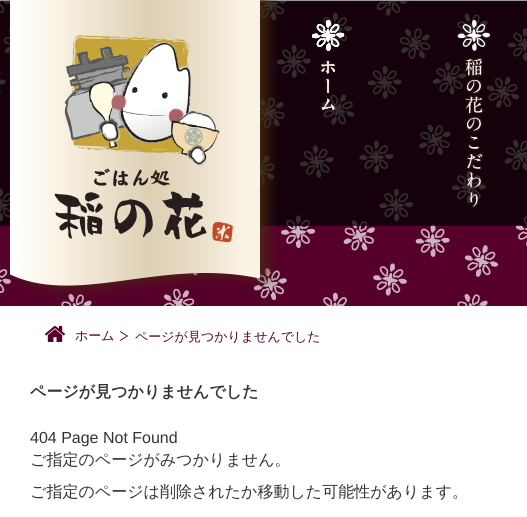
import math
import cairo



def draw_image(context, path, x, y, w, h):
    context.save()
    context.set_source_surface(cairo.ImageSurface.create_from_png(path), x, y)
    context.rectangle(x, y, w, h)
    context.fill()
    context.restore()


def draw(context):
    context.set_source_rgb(1, 1, 1)
    context.paint()
    draw_image(context, "images/1.png", 0, 0, 527, 306)
    draw_image(context, "images/2.png", 8, 0, 271, 299)
    draw_image(context, "images/3.png", 312, 20, 32, 91)
    draw_image(context, "images/4.png", 458, 20, 32, 188)
    draw_image(context, "images/5.png", 45, 326, 20, 16)
    draw_image(context, "images/6.png", 120, 331, 8, 10)
    context.select_font_face("WenQuanYi Zen Hei Medium")
    context.set_font_size(13)
    context.set_source_rgb(86 / 255, 0, 41 / 255)
    context.move_to(75, 340)
    context.show_text("ホーム")
    context.move_to(135, 341)
    context.show_text("ページが見つかりませんでした")
    context.select_font_face("WenQuanYi Zen Hei", cairo.FontSlant.NORMAL, cairo.FontWeight.BOLD)
    context.set_font_size(16)
    context.set_source_rgb(51 / 255, 51 / 255, 51 / 255)
    context.move_to(30, 397)
    context.show_text("ページが見つかりませんでした")
    context.select_font_face("Liberation Sans")
    context.move_to(30, 443)
    context.show_text("404 Page Not Found")
    context.select_font_face("WenQuanYi Zen Hei Medium")
    context.move_to(30, 465)
    context.show_text("ご指定のページがみつかりません。")
    context.move_to(30, 497)
    context.show_text("ご指定のページは削除されたか移動した可能性があります。")


surface = cairo.ImageSurface(cairo.Format.RGB24, 527, 517)
context = cairo.Context(surface)
options = cairo.FontOptions()
options.set_hint_metrics(cairo.HintMetrics.OFF)
options.set_hint_style(cairo.HintStyle.NONE)
context.set_font_options(options)
context.set_miter_limit(4)
draw(context)
surface.write_to_png("out.png")
